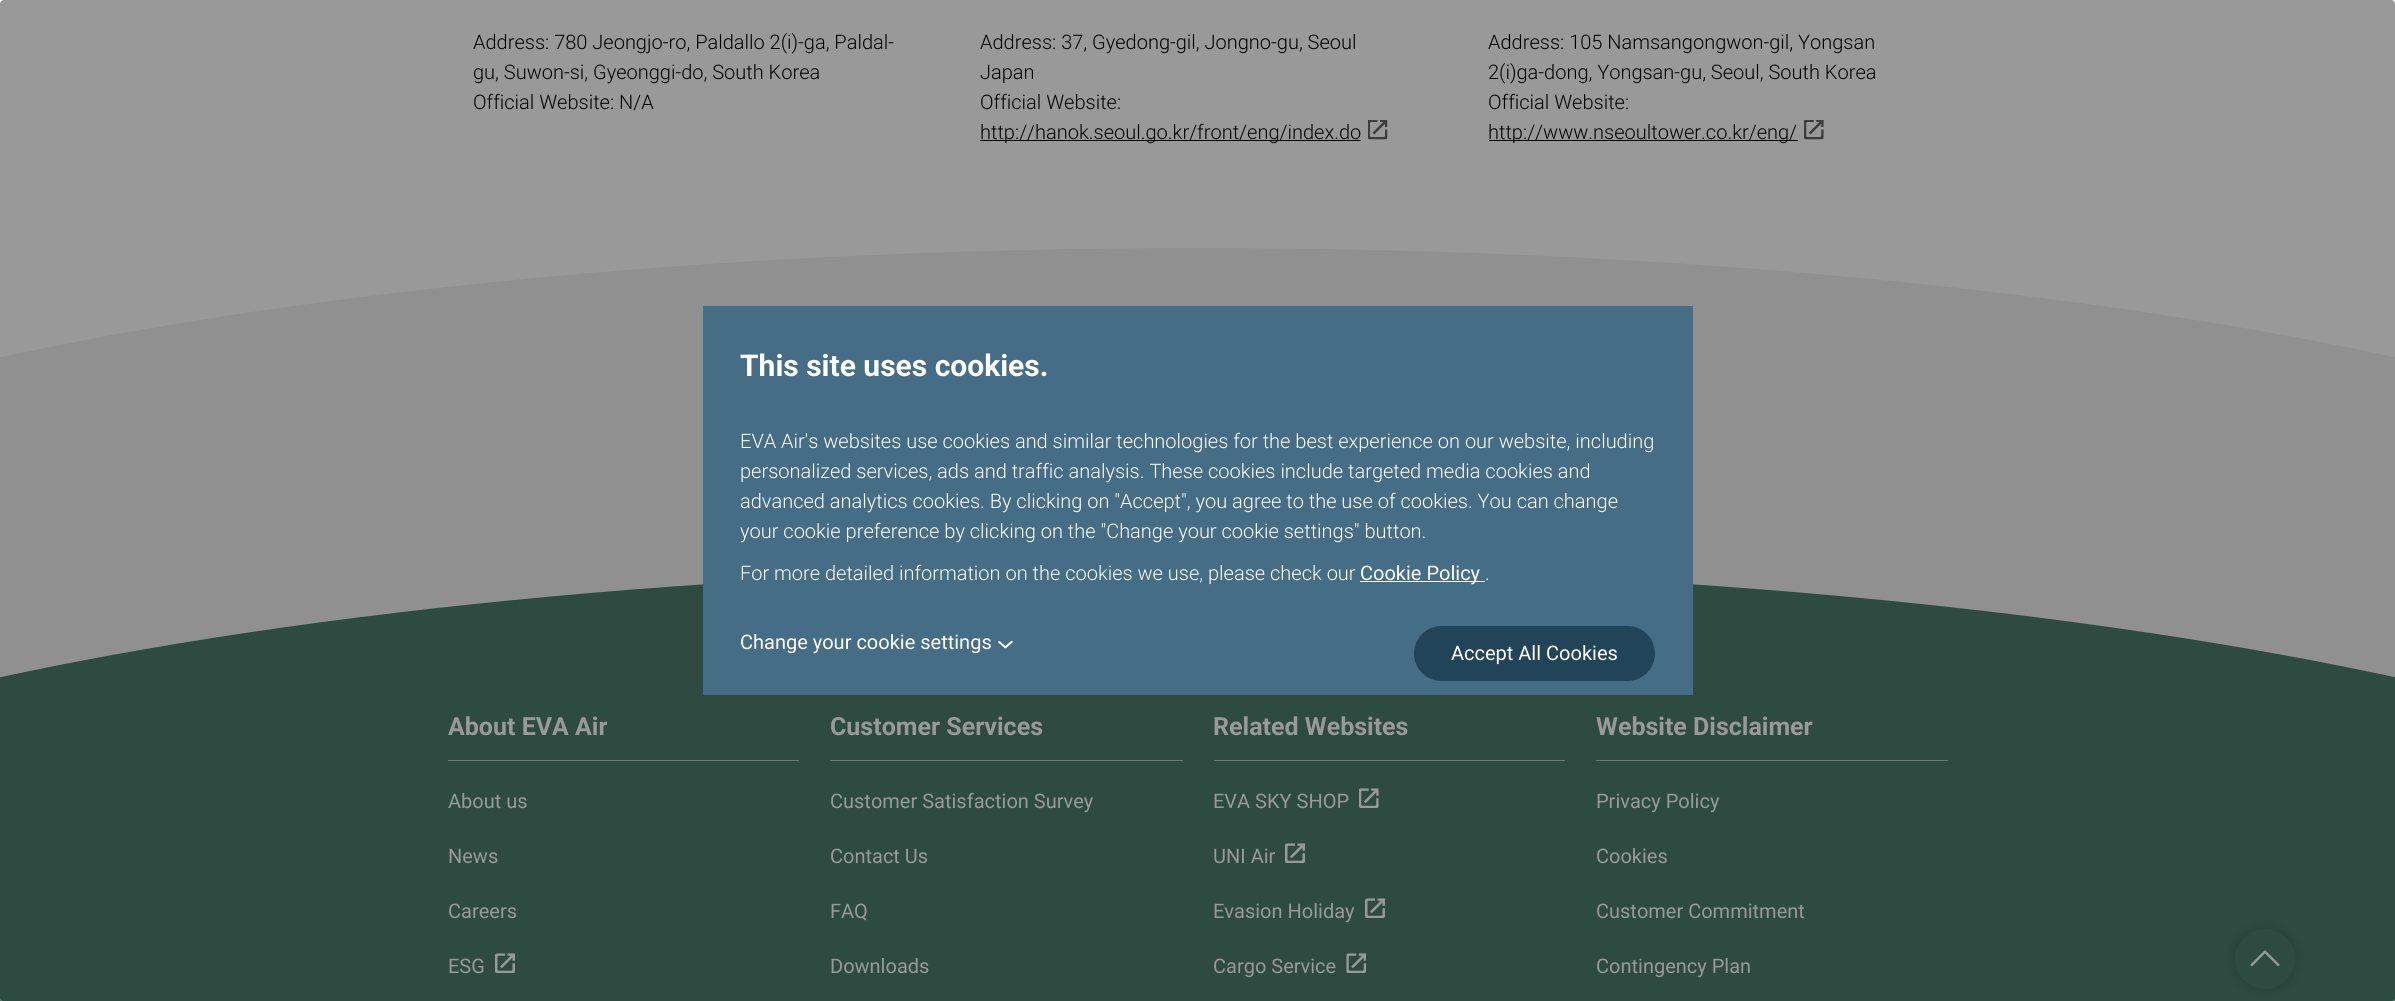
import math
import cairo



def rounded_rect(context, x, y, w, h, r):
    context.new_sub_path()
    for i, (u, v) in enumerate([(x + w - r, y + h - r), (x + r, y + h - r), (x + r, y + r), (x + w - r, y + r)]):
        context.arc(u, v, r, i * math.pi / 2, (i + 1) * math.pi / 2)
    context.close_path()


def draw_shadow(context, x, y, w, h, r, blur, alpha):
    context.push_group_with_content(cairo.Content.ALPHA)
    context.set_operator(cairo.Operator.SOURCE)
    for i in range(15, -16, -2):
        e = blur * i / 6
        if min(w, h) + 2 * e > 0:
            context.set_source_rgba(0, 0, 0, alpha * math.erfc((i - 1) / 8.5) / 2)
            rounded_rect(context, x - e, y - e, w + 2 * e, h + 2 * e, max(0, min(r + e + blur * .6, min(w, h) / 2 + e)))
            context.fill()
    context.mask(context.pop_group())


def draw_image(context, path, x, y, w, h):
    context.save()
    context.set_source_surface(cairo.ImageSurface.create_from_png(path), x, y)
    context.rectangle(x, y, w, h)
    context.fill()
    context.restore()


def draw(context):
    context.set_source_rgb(1, 1, 1)
    context.paint()
    context.set_source_rgb(0, 0, 0)
    context.rectangle(980, 140, 381, 1)
    context.fill()
    draw_image(context, "images/1.png", 1368, 120, 20, 20)
    context.rectangle(1489, 140, 309, 1)
    context.fill()
    draw_image(context, "images/2.png", 1804, 120, 20, 20)
    context.set_source_rgb(240 / 255, 240 / 255, 240 / 255)
    context.new_path()
    context.move_to(1198, 248)
    context.curve_to(2170, 248, 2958, 431, 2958, 658)
    context.line_to(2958, 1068)
    context.line_to(-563, 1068)
    context.line_to(-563, 658)
    context.curve_to(-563, 431, 225, 248, 1198, 248)
    context.close_path()
    context.fill()
    context.set_source_rgb(75 / 255, 125 / 255, 107 / 255)
    context.new_path()
    context.move_to(1198, 568)
    context.curve_to(2170, 568, 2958, 751, 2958, 978)
    context.line_to(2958, 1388)
    context.line_to(-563, 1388)
    context.line_to(-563, 978)
    context.curve_to(-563, 751, 225, 568, 1198, 568)
    context.close_path()
    context.fill()
    context.set_source_rgb(183 / 255, 203 / 255, 196 / 255)
    context.rectangle(448, 760, 351, 1)
    context.fill()
    draw_image(context, "images/4.png", 495, 953, 20, 20)
    context.rectangle(830, 760, 353, 1)
    context.fill()
    context.rectangle(1214, 760, 351, 1)
    context.fill()
    draw_image(context, "images/5.png", 1359, 788, 20, 20)
    draw_image(context, "images/6.png", 1285, 843, 20, 20)
    draw_image(context, "images/6.png", 1365, 898, 20, 20)
    draw_image(context, "images/7.png", 1346, 953, 20, 20)
    context.rectangle(1596, 760, 352, 1)
    context.fill()
    context.set_source_rgb(0, 0, 0)
    draw_shadow(context, 2235, 929, 60, 60, 30, 6, 0.16)
    context.set_source_rgb(75 / 255, 125 / 255, 107 / 255)
    context.arc(2265, 959, 30, 0, 2 * math.pi)
    context.fill()
    draw_image(context, "images/8.png", 2250, 950, 30, 17)
    context.select_font_face("Roboto Light")
    context.set_font_size(20)
    context.set_source_rgb(0, 0, 0)
    context.move_to(473, 49)
    context.show_text("Address: 780 Jeongjo-ro, Paldallo 2(i)-ga, Paldal-")
    context.move_to(473, 79)
    context.show_text("gu, Suwon-si, Gyeonggi-do, South Korea")
    context.move_to(473, 109)
    context.show_text("Official Website: N/A")
    context.move_to(980, 49)
    context.show_text("Address: 37, Gyedong-gil, Jongno-gu, Seoul")
    context.move_to(980, 79)
    context.show_text("Japan")
    context.move_to(980, 109)
    context.show_text("Official Website:")
    context.move_to(980, 139)
    context.show_text("http://hanok.seoul.go.kr/front/eng/index.do")
    context.move_to(1488, 49)
    context.show_text("Address: 105 Namsangongwon-gil, Yongsan")
    context.move_to(1488, 79)
    context.show_text("2(i)ga-dong, Yongsan-gu, Seoul, South Korea")
    context.move_to(1488, 109)
    context.show_text("Official Website:")
    context.move_to(1488, 139)
    context.show_text("http://www.nseoultower.co.kr/eng/")
    context.select_font_face("Roboto", cairo.FontSlant.NORMAL, cairo.FontWeight.BOLD)
    context.set_font_size(25)
    context.set_source_rgb(1, 1, 1)
    context.move_to(448, 735)
    context.show_text("About EVA Air")
    context.select_font_face("Roboto")
    context.set_font_size(20)
    context.move_to(448, 808)
    context.show_text("About us")
    context.move_to(448, 863)
    context.show_text("News")
    context.move_to(448, 918)
    context.show_text("Careers")
    context.move_to(448, 973)
    context.show_text("ESG")
    context.select_font_face("Roboto", cairo.FontSlant.NORMAL, cairo.FontWeight.BOLD)
    context.set_font_size(25)
    context.move_to(830, 735)
    context.show_text("Customer Services")
    context.select_font_face("Roboto")
    context.set_font_size(20)
    context.move_to(830, 808)
    context.show_text("Customer Satisfaction Survey")
    context.move_to(830, 863)
    context.show_text("Contact Us")
    context.move_to(830, 918)
    context.show_text("FAQ")
    context.move_to(830, 973)
    context.show_text("Downloads")
    context.select_font_face("Roboto", cairo.FontSlant.NORMAL, cairo.FontWeight.BOLD)
    context.set_font_size(25)
    context.move_to(1213, 735)
    context.show_text("Related Websites")
    context.select_font_face("Roboto")
    context.set_font_size(20)
    context.move_to(1213, 808)
    context.show_text("EVA SKY SHOP")
    context.move_to(1213, 863)
    context.show_text("UNI Air")
    context.move_to(1213, 918)
    context.show_text("Evasion Holiday")
    context.move_to(1213, 973)
    context.show_text("Cargo Service")
    context.select_font_face("Roboto", cairo.FontSlant.NORMAL, cairo.FontWeight.BOLD)
    context.set_font_size(25)
    context.move_to(1596, 735)
    context.show_text("Website Disclaimer")
    context.select_font_face("Roboto")
    context.set_font_size(20)
    context.move_to(1596, 808)
    context.show_text("Privacy Policy")
    context.move_to(1596, 863)
    context.show_text("Cookies")
    context.move_to(1596, 918)
    context.show_text("Customer Commitment")
    context.move_to(1596, 973)
    context.show_text("Contingency Plan")
    context.set_source_rgba(0, 0, 0, 0.4)
    rounded_rect(context, 0, 0, 2395, 1001, 4)
    context.fill()
    context.set_source_rgb(70 / 255, 109 / 255, 134 / 255)
    context.rectangle(703, 306, 990, 389)
    context.fill()
    draw_image(context, "images/3.png", 998, 640, 15, 9)
    context.set_source_rgb(1, 1, 1)
    context.move_to(740, 649)
    context.show_text("Change your cookie settings")
    context.rectangle(1360, 581, 125, 1)
    context.fill()
    context.move_to(1360, 580)
    context.show_text("Cookie Policy")
    context.select_font_face("Roboto Light")
    context.move_to(1485, 580)
    context.show_text(".")
    context.move_to(740, 580)
    context.show_text("For more detailed information on the cookies we use, please check our")
    context.move_to(740, 538)
    context.show_text("your cookie preference by clicking on the \"Change your cookie settings\" button.")
    context.move_to(740, 508)
    context.show_text("advanced analytics cookies. By clicking on \"Accept\", you agree to the use of cookies. You can change")
    context.move_to(740, 478)
    context.show_text("personalized services, ads and traffic analysis. These cookies include targeted media cookies and")
    context.move_to(740, 448)
    context.show_text("EVA Air's websites use cookies and similar technologies for the best experience on our website, including")
    context.select_font_face("Roboto", cairo.FontSlant.NORMAL, cairo.FontWeight.BOLD)
    context.set_font_size(30)
    context.move_to(740, 376)
    context.show_text("This site uses cookies.")
    context.set_source_rgb(34 / 255, 68 / 255, 89 / 255)
    rounded_rect(context, 1414, 626, 241, 55, 27.5)
    context.fill()
    context.select_font_face("Roboto")
    context.set_font_size(20)
    context.set_source_rgb(1, 1, 1)
    context.move_to(1451, 660)
    context.show_text("Accept All Cookies")


surface = cairo.ImageSurface(cairo.Format.RGB24, 2395, 1001)
context = cairo.Context(surface)
options = cairo.FontOptions()
options.set_hint_metrics(cairo.HintMetrics.OFF)
options.set_hint_style(cairo.HintStyle.NONE)
context.set_font_options(options)
context.set_miter_limit(4)
draw(context)
surface.write_to_png("out.png")
